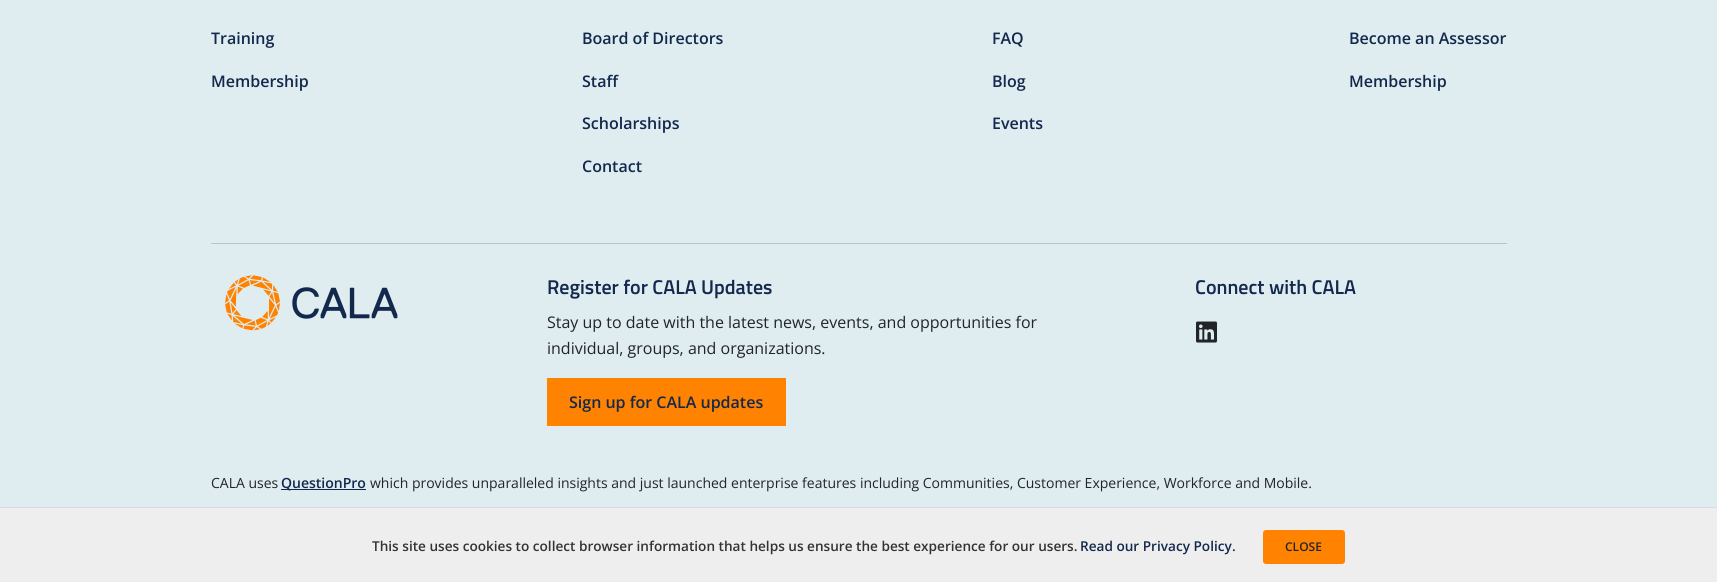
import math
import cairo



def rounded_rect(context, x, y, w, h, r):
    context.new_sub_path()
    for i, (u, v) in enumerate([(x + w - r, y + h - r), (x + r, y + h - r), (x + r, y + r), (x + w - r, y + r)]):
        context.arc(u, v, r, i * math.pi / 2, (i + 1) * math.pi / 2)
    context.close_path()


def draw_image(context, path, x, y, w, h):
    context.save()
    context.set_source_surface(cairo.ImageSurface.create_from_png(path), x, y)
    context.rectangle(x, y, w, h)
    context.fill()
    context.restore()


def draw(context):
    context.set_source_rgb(223 / 255, 236 / 255, 240 / 255)
    context.paint()
    context.set_source_rgb(182 / 255, 197 / 255, 207 / 255)
    context.rectangle(211, 243, 1296, 1)
    context.fill()
    draw_image(context, "images/1.png", 225, 275, 173, 56)
    context.set_source_rgb(1, 131 / 255, 0)
    context.rectangle(547, 378, 239, 48)
    context.fill()
    draw_image(context, "images/2.png", 1196, 321, 21, 22)
    context.set_source_rgb(18 / 255, 40 / 255, 76 / 255)
    context.rectangle(281, 489, 85, 1)
    context.fill()
    context.set_source_rgb(238 / 255, 238 / 255, 238 / 255)
    context.rectangle(0, 508, 1717, 74)
    context.fill()
    context.set_source_rgb(221 / 255, 221 / 255, 221 / 255)
    context.rectangle(0, 507, 1717, 1)
    context.fill()
    context.set_source_rgb(1, 131 / 255, 0)
    rounded_rect(context, 1263, 530, 82, 34, 3)
    context.fill()
    context.select_font_face("Open Sans SemiBold")
    context.set_font_size(16)
    context.set_source_rgb(18 / 255, 40 / 255, 76 / 255)
    context.move_to(211, 44)
    context.show_text("Training")
    context.move_to(211, 87)
    context.show_text("Membership")
    context.move_to(582, 44)
    context.show_text("Board of Directors")
    context.move_to(582, 87)
    context.show_text("Staff")
    context.move_to(582, 129)
    context.show_text("Scholarships")
    context.move_to(582, 172)
    context.show_text("Contact")
    context.move_to(992, 44)
    context.show_text("FAQ")
    context.move_to(992, 87)
    context.show_text("Blog")
    context.move_to(992, 129)
    context.show_text("Events")
    context.move_to(1349, 44)
    context.show_text("Become an Assessor")
    context.move_to(1349, 87)
    context.show_text("Membership")
    context.select_font_face("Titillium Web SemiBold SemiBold")
    context.set_font_size(20)
    context.move_to(547, 294)
    context.show_text("Register for CALA Updates")
    context.select_font_face("Open Sans")
    context.set_font_size(16)
    context.set_source_rgb(33 / 255, 37 / 255, 41 / 255)
    context.move_to(547, 328)
    context.show_text("Stay up to date with the latest news, events, and opportunities for")
    context.move_to(547, 354)
    context.show_text("individual, groups, and organizations.")
    context.select_font_face("Open Sans SemiBold")
    context.set_source_rgb(18 / 255, 40 / 255, 76 / 255)
    context.move_to(569, 408)
    context.show_text("Sign up for CALA updates")
    context.select_font_face("Titillium Web SemiBold SemiBold")
    context.set_font_size(20)
    context.move_to(1195, 294)
    context.show_text("Connect with CALA")
    context.select_font_face("Open Sans")
    context.set_font_size(14)
    context.set_source_rgb(33 / 255, 37 / 255, 41 / 255)
    context.move_to(211, 488)
    context.show_text("CALA uses")
    context.select_font_face("Open Sans SemiBold")
    context.set_source_rgb(18 / 255, 40 / 255, 76 / 255)
    context.move_to(281, 488)
    context.show_text("QuestionPro")
    context.select_font_face("Open Sans")
    context.set_source_rgb(33 / 255, 37 / 255, 41 / 255)
    context.move_to(370, 488)
    context.show_text("which provides unparalleled insights and just launched enterprise features including Communities, Customer Experience, Workforce and Mobile.")
    context.select_font_face("Open Sans SemiBold")
    context.set_font_size(13.6)
    context.set_source_rgb(51 / 255, 51 / 255, 51 / 255)
    context.move_to(372, 551)
    context.show_text("This site uses cookies to collect browser information that helps us ensure the best experience for our users.")
    context.set_source_rgb(18 / 255, 40 / 255, 76 / 255)
    context.move_to(1080, 551)
    context.show_text("Read our Privacy Policy")
    context.set_source_rgb(51 / 255, 51 / 255, 51 / 255)
    context.move_to(1232, 551)
    context.show_text(".")
    context.set_font_size(12)
    context.set_source_rgb(33 / 255, 37 / 255, 41 / 255)
    context.move_to(1285, 551)
    context.show_text("CLOSE")


surface = cairo.ImageSurface(cairo.Format.RGB24, 1717, 582)
context = cairo.Context(surface)
options = cairo.FontOptions()
options.set_hint_metrics(cairo.HintMetrics.OFF)
options.set_hint_style(cairo.HintStyle.NONE)
context.set_font_options(options)
context.set_miter_limit(4)
draw(context)
surface.write_to_png("out.png")
